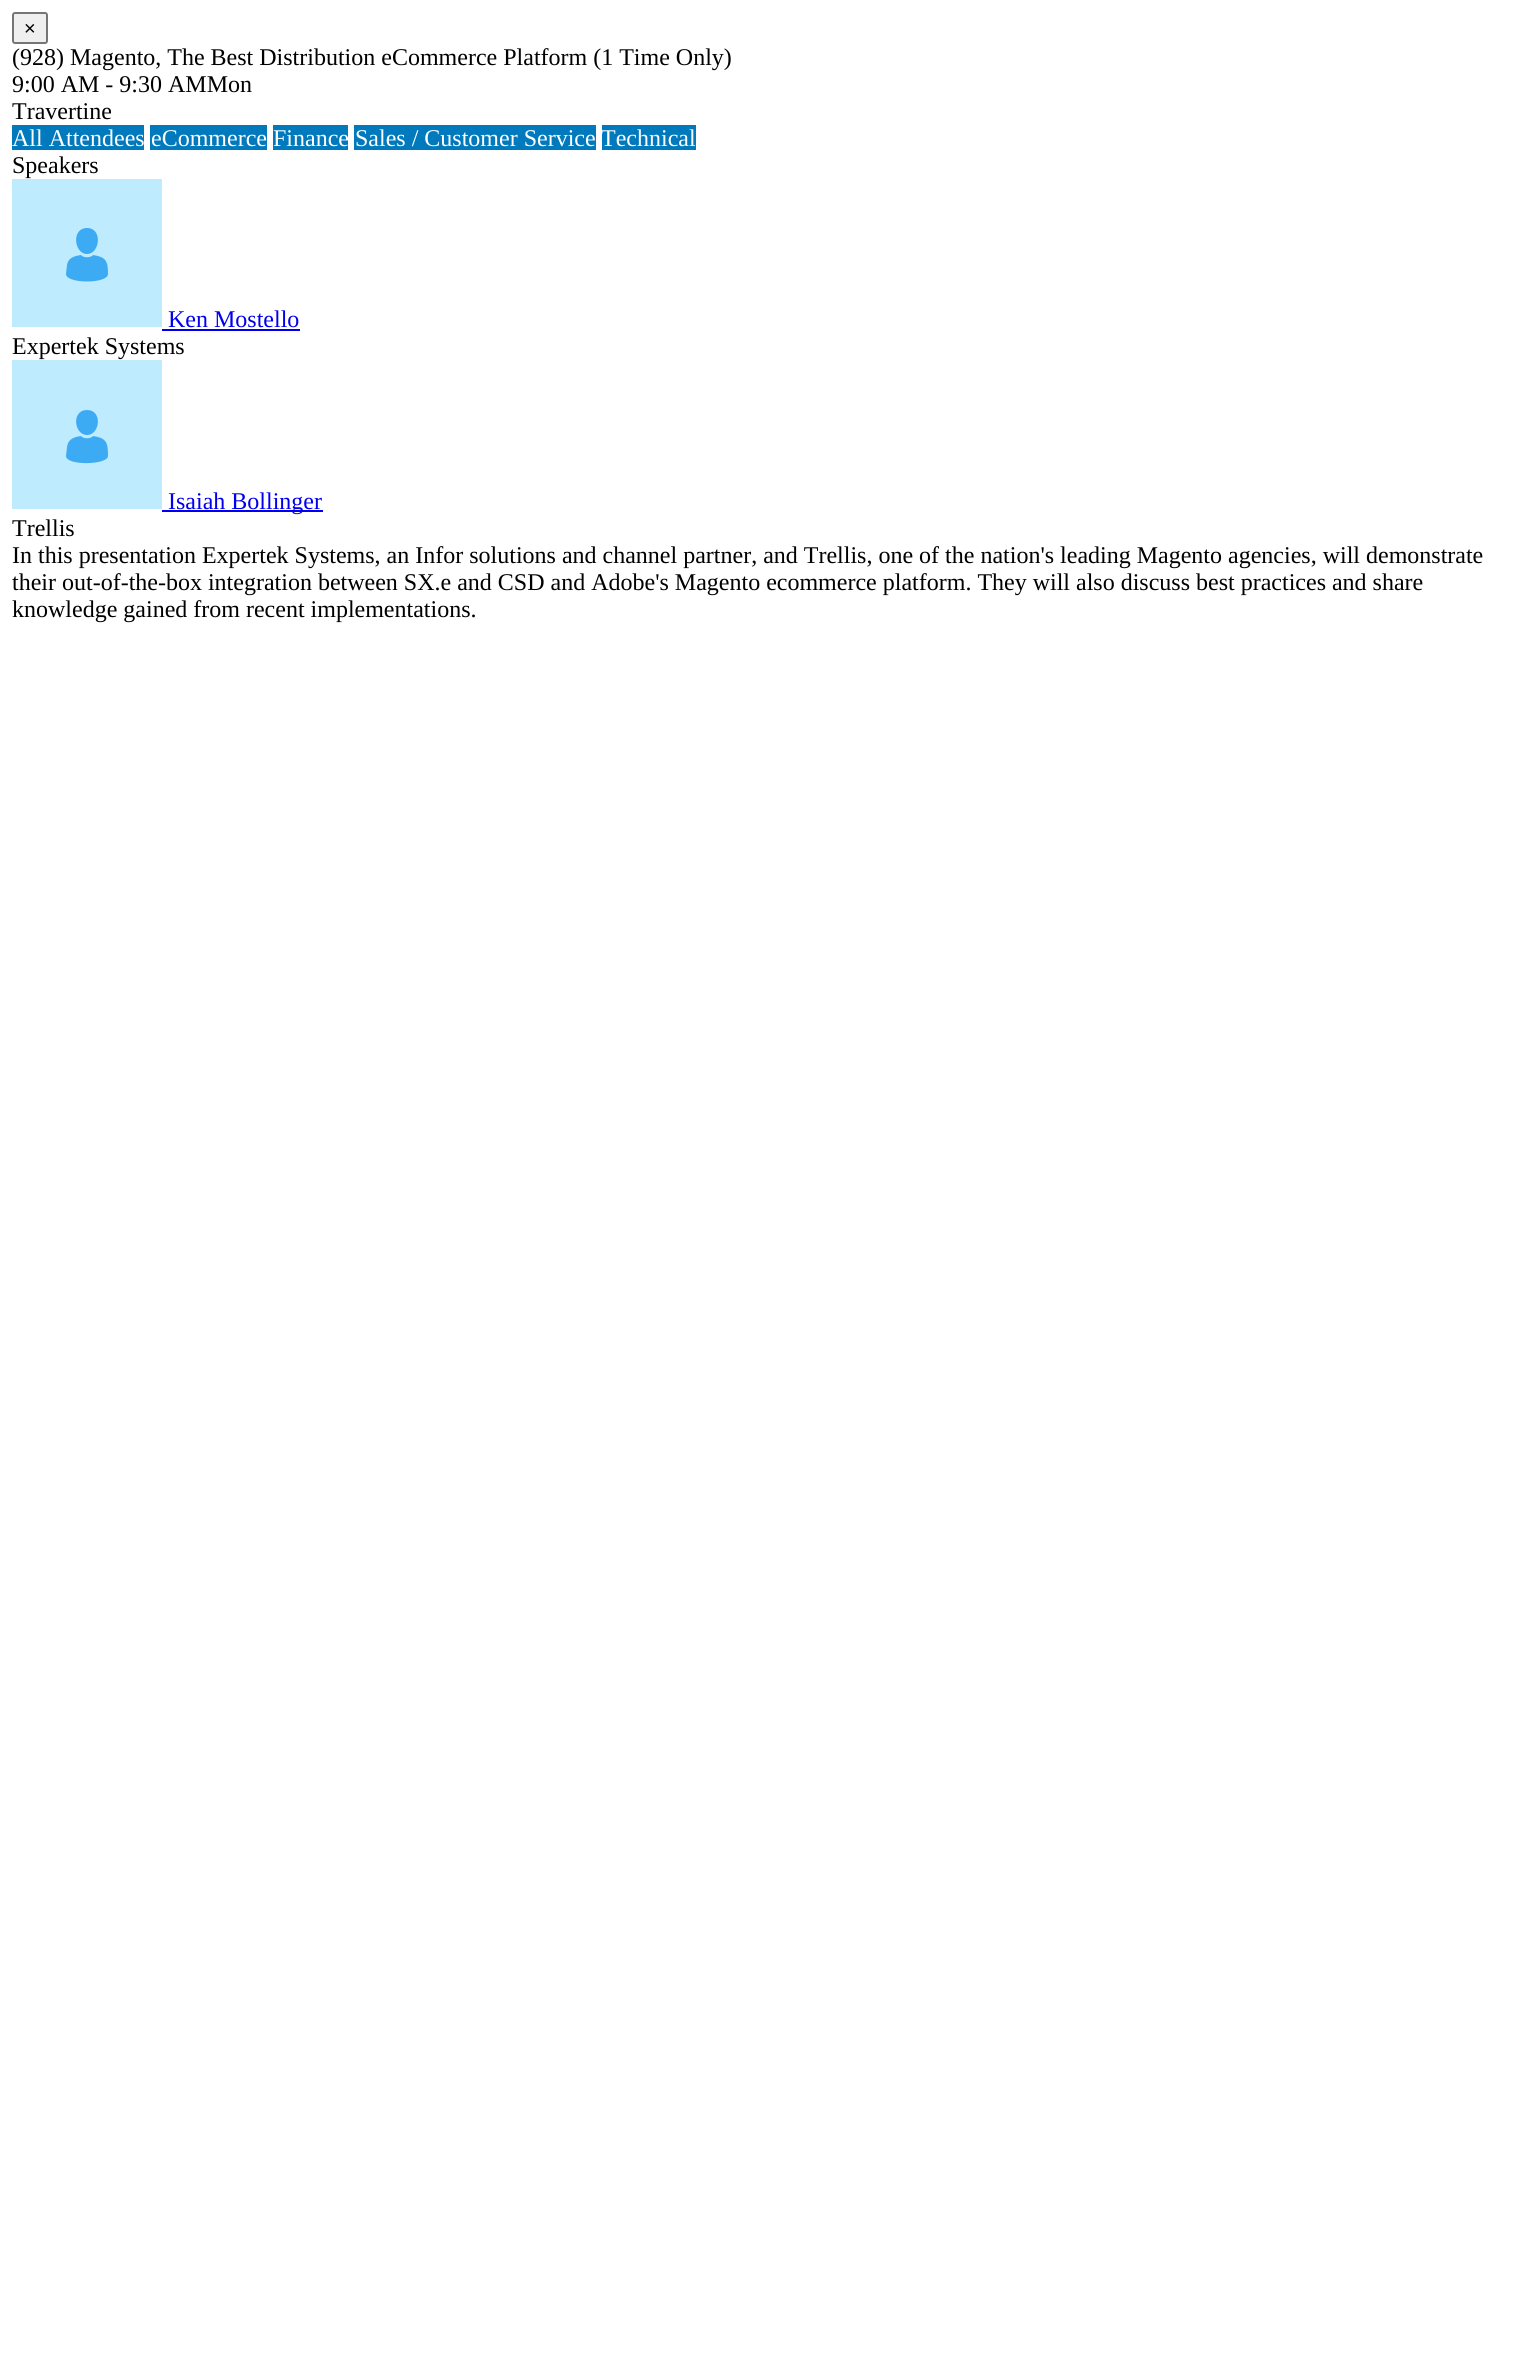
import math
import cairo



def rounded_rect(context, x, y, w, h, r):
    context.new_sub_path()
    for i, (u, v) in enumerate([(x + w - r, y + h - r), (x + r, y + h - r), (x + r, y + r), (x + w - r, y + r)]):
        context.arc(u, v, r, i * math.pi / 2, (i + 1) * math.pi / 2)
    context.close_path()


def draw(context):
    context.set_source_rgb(1, 1, 1)
    context.paint()
    context.set_source_rgb(239 / 255, 239 / 255, 239 / 255)
    rounded_rect(context, 13, 13, 34, 30, 2)
    context.fill_preserve()
    context.set_source_rgb(118 / 255, 118 / 255, 118 / 255)
    context.stroke()
    context.set_source_rgb(0, 121 / 255, 189 / 255)
    context.rectangle(12, 125, 132, 25)
    context.fill()
    context.rectangle(150, 125, 117, 25)
    context.fill()
    context.rectangle(273, 125, 75, 25)
    context.fill()
    context.rectangle(354, 125, 242, 25)
    context.fill()
    context.rectangle(602, 125, 94, 25)
    context.fill()
    context.set_source_rgb(191 / 255, 235 / 255, 1)
    context.rectangle(12, 179, 150, 148)
    context.fill()
    context.set_source_rgb(61 / 255, 171 / 255, 244 / 255)
    context.set_fill_rule(cairo.FillRule.EVEN_ODD)
    context.new_path()
    context.move_to(87, 254)
    context.curve_to(100, 254, 103, 228, 87, 228)
    context.curve_to(71, 228, 74, 254, 87, 254)
    context.close_path()
    context.move_to(108, 274)
    context.curve_to(108, 261, 106, 257, 93, 255)
    context.curve_to(91, 258, 83, 258, 81, 255)
    context.curve_to(74, 256, 68, 258, 67, 265)
    context.line_to(66, 274)
    context.curve_to(66, 284, 108, 284, 108, 274)
    context.close_path()
    context.fill()
    context.set_source_rgb(0, 0, 238 / 255)
    context.rectangle(162, 329, 138, 2)
    context.fill()
    context.set_source_rgb(191 / 255, 235 / 255, 1)
    context.rectangle(12, 360, 150, 149)
    context.fill()
    context.set_source_rgb(61 / 255, 171 / 255, 244 / 255)
    context.new_path()
    context.move_to(87, 435)
    context.curve_to(100, 435, 103, 410, 87, 410)
    context.curve_to(71, 410, 74, 435, 87, 435)
    context.close_path()
    context.move_to(108, 455)
    context.curve_to(108, 442, 106, 438, 93, 436)
    context.curve_to(91, 439, 83, 439, 81, 436)
    context.curve_to(74, 437, 68, 439, 67, 447)
    context.line_to(66, 456)
    context.curve_to(66, 466, 108, 465, 108, 456)
    context.close_path()
    context.fill()
    context.set_source_rgb(0, 0, 238 / 255)
    context.rectangle(162, 510, 161, 2)
    context.fill()
    context.select_font_face("Liberation Sans")
    context.set_font_size(20)
    context.set_source_rgb(0, 0, 0)
    context.move_to(24, 35)
    context.show_text("×")
    context.select_font_face("Liberation Serif")
    context.set_font_size(24)
    context.move_to(12, 65)
    context.show_text("(928) Magento, The Best Distribution eCommerce Platform (1 Time Only)")
    context.move_to(12, 92)
    context.show_text("9:00 AM - 9:30 AMMon")
    context.move_to(12, 119)
    context.show_text("Travertine")
    context.set_source_rgb(1, 1, 1)
    context.move_to(12, 146)
    context.show_text("All Attendees")
    context.move_to(151, 146)
    context.show_text("eCommerce")
    context.move_to(273, 146)
    context.show_text("Finance")
    context.move_to(355, 146)
    context.show_text("Sales / Customer Service")
    context.move_to(601, 146)
    context.show_text("Technical")
    context.set_source_rgb(0, 0, 0)
    context.move_to(12, 173)
    context.show_text("Speakers")
    context.set_source_rgb(0, 0, 238 / 255)
    context.move_to(168, 327)
    context.show_text("Ken Mostello")
    context.set_source_rgb(0, 0, 0)
    context.move_to(12, 354)
    context.show_text("Expertek Systems")
    context.set_source_rgb(0, 0, 238 / 255)
    context.move_to(168, 509)
    context.show_text("Isaiah Bollinger")
    context.set_source_rgb(0, 0, 0)
    context.move_to(12, 536)
    context.show_text("Trellis")
    context.move_to(12, 563)
    context.show_text("In this presentation Expertek Systems, an Infor solutions and channel partner, and Trellis, one of the nation's leading Magento agencies, will demonstrate")
    context.move_to(12, 590)
    context.show_text("their out-of-the-box integration between SX.e and CSD and Adobe's Magento ecommerce platform. They will also discuss best practices and share")
    context.move_to(12, 617)
    context.show_text("knowledge gained from recent implementations.")


surface = cairo.ImageSurface(cairo.Format.RGB24, 1529, 2378)
context = cairo.Context(surface)
options = cairo.FontOptions()
options.set_hint_metrics(cairo.HintMetrics.OFF)
options.set_hint_style(cairo.HintStyle.NONE)
context.set_font_options(options)
context.set_miter_limit(4)
draw(context)
surface.write_to_png("out.png")
